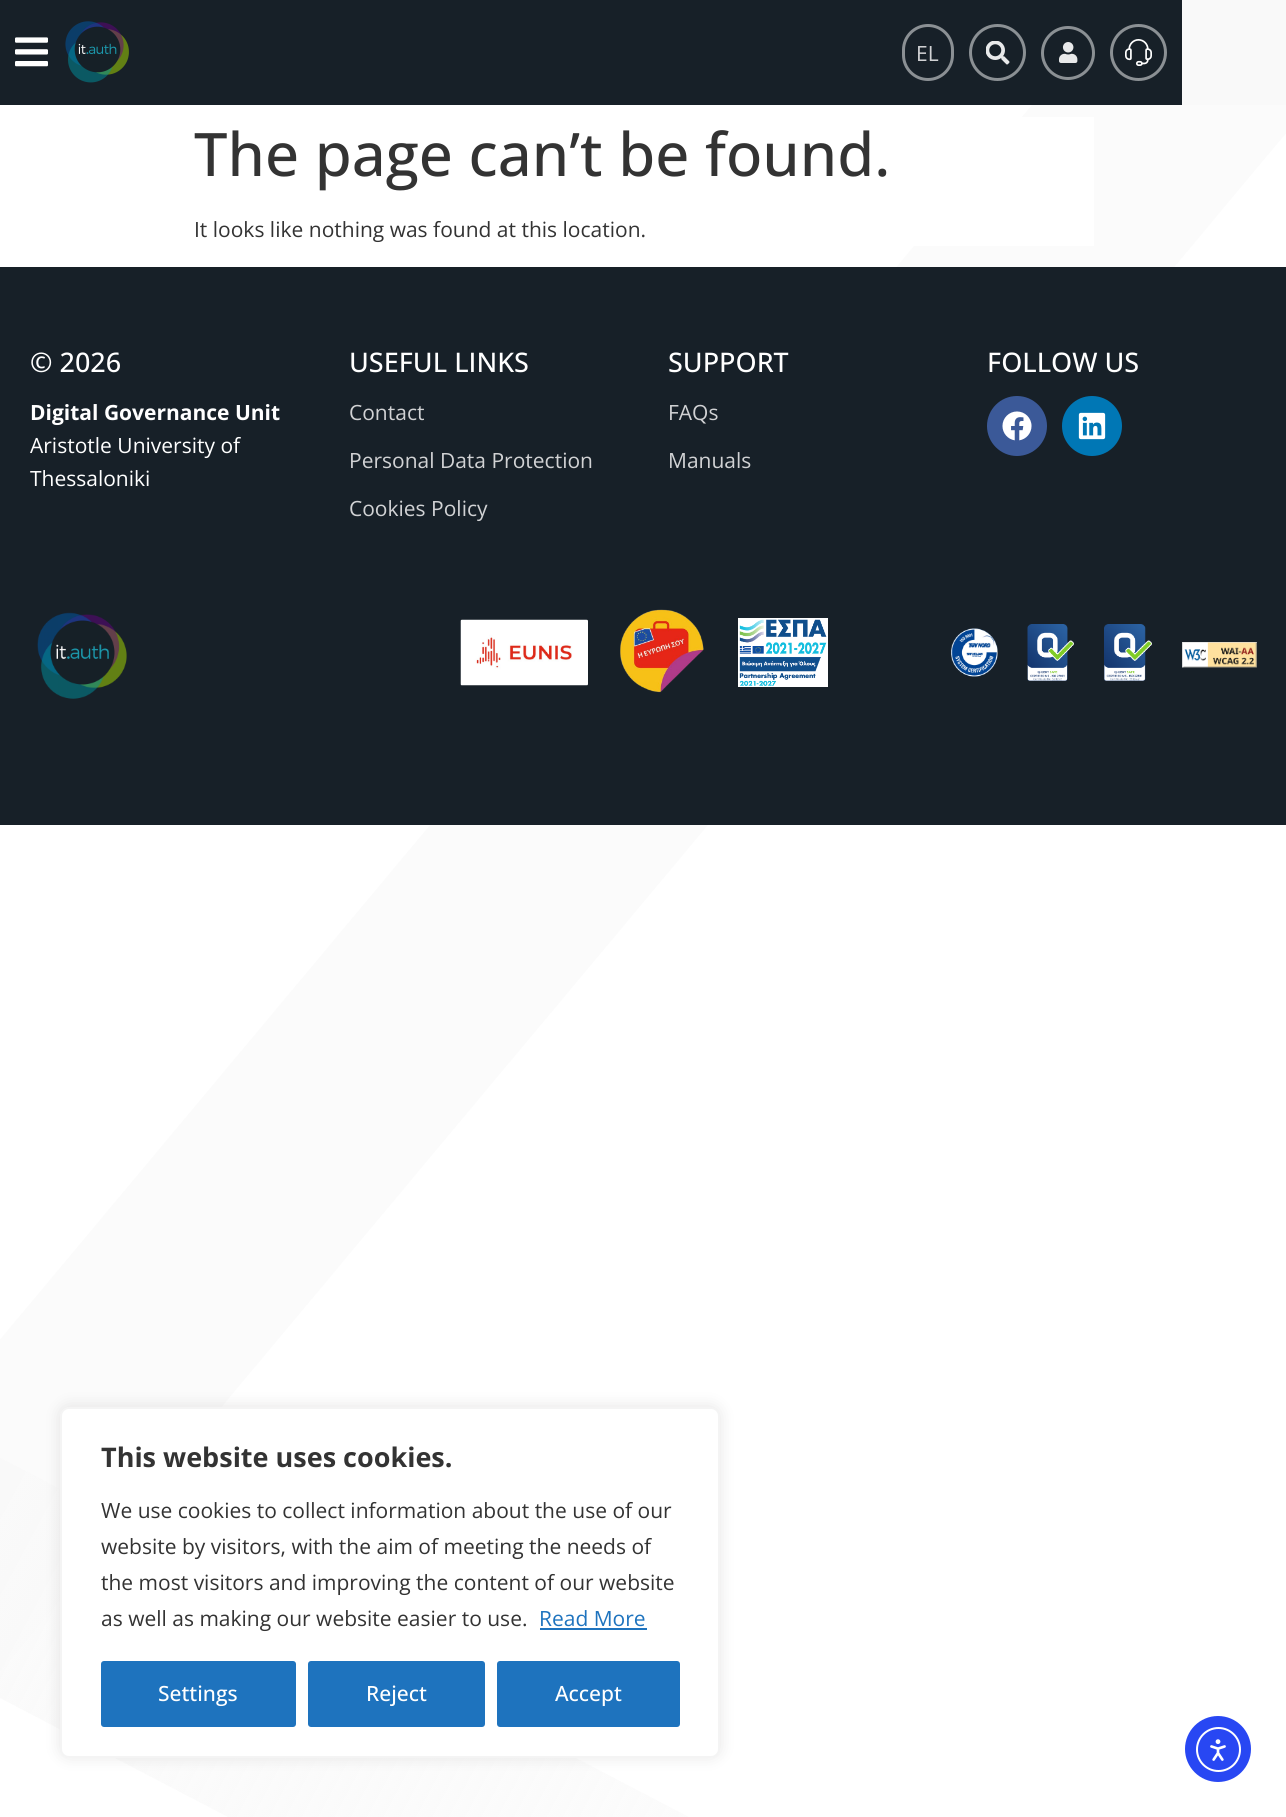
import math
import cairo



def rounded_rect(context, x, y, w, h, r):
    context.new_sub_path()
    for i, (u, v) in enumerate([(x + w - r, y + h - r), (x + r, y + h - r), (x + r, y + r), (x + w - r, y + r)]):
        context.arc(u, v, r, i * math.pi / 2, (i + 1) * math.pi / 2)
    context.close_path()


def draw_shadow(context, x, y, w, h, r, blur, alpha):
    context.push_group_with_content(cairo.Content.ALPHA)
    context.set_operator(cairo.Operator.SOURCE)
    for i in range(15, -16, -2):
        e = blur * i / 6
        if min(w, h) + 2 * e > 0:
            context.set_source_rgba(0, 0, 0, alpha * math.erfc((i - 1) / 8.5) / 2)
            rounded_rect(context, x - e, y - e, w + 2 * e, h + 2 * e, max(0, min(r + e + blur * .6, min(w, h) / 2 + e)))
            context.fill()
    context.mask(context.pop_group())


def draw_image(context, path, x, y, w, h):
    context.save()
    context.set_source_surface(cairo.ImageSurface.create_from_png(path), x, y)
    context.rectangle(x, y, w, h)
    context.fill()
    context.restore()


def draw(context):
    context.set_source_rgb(1, 1, 1)
    context.paint()
    draw_image(context, "images/1.png", 0, 105, 1286, 1712)
    context.set_source_rgb(23 / 255, 32 / 255, 40 / 255)
    context.rectangle(0, 0, 1182, 105)
    context.fill()
    draw_image(context, "images/2.png", 15, 37, 33, 30)
    draw_image(context, "images/3.png", 65, 21, 64, 62)
    rounded_rect(context, 903.5, 25.5, 49, 54, 24.5)
    context.set_source_rgb(139 / 255, 144 / 255, 148 / 255)
    context.set_line_width(3)
    context.stroke()
    context.arc(997.5, 52.5, 27, 0, 2 * math.pi)
    context.stroke()
    draw_image(context, "images/4.png", 986, 41, 24, 24)
    context.arc(1068, 53, 25.5, 0, 2 * math.pi)
    context.stroke()
    draw_image(context, "images/5.png", 1059, 42, 19, 21)
    context.arc(1138.5, 52.5, 27, 0, 2 * math.pi)
    context.stroke()
    draw_image(context, "images/6.png", 1125, 39, 27, 27)
    context.set_source_rgb(249 / 255, 249 / 255, 249 / 255)
    context.rectangle(1182, 0, 104, 105)
    context.fill()
    context.set_source_rgb(1, 1, 1)
    context.rectangle(914, 117, 180, 129)
    context.fill()
    context.set_source_rgb(23 / 255, 32 / 255, 40 / 255)
    context.rectangle(0, 267, 1286, 558)
    context.fill()
    context.set_source_rgb(59 / 255, 89 / 255, 152 / 255)
    context.arc(1017, 426, 30, 0, 2 * math.pi)
    context.fill()
    draw_image(context, "images/7.png", 1002, 411, 30, 30)
    context.set_source_rgb(0, 119 / 255, 181 / 255)
    context.arc(1092, 426, 30, 0, 2 * math.pi)
    context.fill()
    draw_image(context, "images/8.png", 1078, 412, 28, 28)
    draw_image(context, "images/9.png", 37, 612, 90, 87)
    draw_image(context, "images/10.png", 460, 619, 128, 67)
    draw_image(context, "images/11.png", 620, 609, 84, 84)
    context.set_source_rgb(1, 1, 1)
    context.rectangle(738, 618, 90, 69)
    context.fill()
    draw_image(context, "images/12.png", 739, 619, 88, 67)
    draw_image(context, "images/13.png", 951, 628, 47, 49)
    draw_image(context, "images/14.png", 1027, 624, 47, 57)
    draw_image(context, "images/15.png", 1104, 624, 48, 57)
    draw_image(context, "images/16.png", 1182, 642, 75, 26)
    context.set_source_rgb(172 / 255, 171 / 255, 171 / 255)
    draw_shadow(context, 60, 1406, 660, 351, 9, 7.5, 0.3)
    context.set_source_rgb(1, 1, 1)
    rounded_rect(context, 61, 1408, 658, 349, 8)
    context.fill_preserve()
    context.set_source_rgb(244 / 255, 244 / 255, 244 / 255)
    context.set_line_width(2)
    context.stroke()
    context.set_source_rgb(30 / 255, 115 / 255, 190 / 255)
    context.rectangle(540, 1628, 107, 2)
    context.fill()
    rounded_rect(context, 102.5, 1662.5, 192, 63, 1.5)
    context.fill_preserve()
    context.set_line_width(3)
    context.stroke()
    rounded_rect(context, 309.5, 1662.5, 174, 63, 1.5)
    context.fill_preserve()
    context.stroke()
    rounded_rect(context, 498.5, 1662.5, 180, 63, 1.5)
    context.fill_preserve()
    context.stroke()
    context.set_source_rgb(40 / 255, 71 / 255, 243 / 255)
    context.arc(1218, 1749, 33, 0, 2 * math.pi)
    context.fill()
    context.arc(1218.5, 1749.5, 21.5, 0, 2 * math.pi)
    context.set_source_rgb(1, 1, 1)
    context.set_line_width(2)
    context.stroke()
    draw_image(context, "images/17.png", 1210, 1739, 16, 22)
    context.select_font_face("Open Sans")
    context.set_font_size(21)
    context.set_source_rgb(209 / 255, 210 / 255, 212 / 255)
    context.move_to(916, 61)
    context.show_text("EL")
    context.select_font_face("Open Sans Medium")
    context.set_font_size(60)
    context.set_source_rgb(51 / 255, 51 / 255, 51 / 255)
    context.move_to(194, 176)
    context.show_text("The page can’t be found.")
    context.select_font_face("Open Sans")
    context.set_font_size(21)
    context.move_to(194, 237)
    context.show_text("It looks like nothing was found at this location.")
    context.select_font_face("Open Sans Medium")
    context.set_font_size(27)
    context.set_source_rgb(1, 1, 1)
    context.move_to(30, 372)
    context.show_text("© 2026")
    context.select_font_face("Open Sans", cairo.FontSlant.NORMAL, cairo.FontWeight.BOLD)
    context.set_font_size(21)
    context.move_to(30, 420)
    context.show_text("Digital Governance Unit")
    context.select_font_face("Open Sans")
    context.move_to(30, 453)
    context.show_text("Aristotle University of")
    context.move_to(30, 486)
    context.show_text("Thessaloniki")
    context.select_font_face("Open Sans Medium")
    context.set_font_size(27)
    context.move_to(349, 372)
    context.show_text("USEFUL LINKS")
    context.select_font_face("Open Sans")
    context.set_font_size(21)
    context.set_source_rgb(209 / 255, 210 / 255, 212 / 255)
    context.move_to(349, 420)
    context.show_text("Contact")
    context.move_to(349, 468)
    context.show_text("Personal Data Protection")
    context.move_to(349, 516)
    context.show_text("Cookies Policy")
    context.select_font_face("Open Sans Medium")
    context.set_font_size(27)
    context.set_source_rgb(1, 1, 1)
    context.move_to(668, 372)
    context.show_text("SUPPORT")
    context.select_font_face("Open Sans")
    context.set_font_size(21)
    context.set_source_rgb(209 / 255, 210 / 255, 212 / 255)
    context.move_to(668, 420)
    context.show_text("FAQs")
    context.move_to(668, 468)
    context.show_text("Manuals")
    context.select_font_face("Open Sans Medium")
    context.set_font_size(27)
    context.set_source_rgb(1, 1, 1)
    context.move_to(987, 372)
    context.show_text("FOLLOW US")
    context.select_font_face("Open Sans", cairo.FontSlant.NORMAL, cairo.FontWeight.BOLD)
    context.set_source_rgb(51 / 255, 51 / 255, 51 / 255)
    context.move_to(101, 1467)
    context.show_text("This website uses cookies.")
    context.select_font_face("Open Sans")
    context.set_font_size(21)
    context.move_to(101, 1518)
    context.show_text("We use cookies to collect information about the use of our")
    context.move_to(101, 1554)
    context.show_text("website by visitors, with the aim of meeting the needs of")
    context.move_to(101, 1590)
    context.show_text("the most visitors and improving the content of our website")
    context.move_to(101, 1626)
    context.show_text("as well as making our website easier to use.")
    context.set_source_rgb(30 / 255, 115 / 255, 190 / 255)
    context.move_to(539, 1626)
    context.show_text("Read More")
    context.select_font_face("Open Sans Medium")
    context.set_source_rgb(1, 1, 1)
    context.move_to(158, 1701)
    context.show_text("Settings")
    context.move_to(366, 1701)
    context.show_text("Reject")
    context.move_to(555, 1701)
    context.show_text("Accept")


surface = cairo.ImageSurface(cairo.Format.RGB24, 1286, 1817)
context = cairo.Context(surface)
options = cairo.FontOptions()
options.set_hint_metrics(cairo.HintMetrics.OFF)
options.set_hint_style(cairo.HintStyle.NONE)
context.set_font_options(options)
context.set_miter_limit(4)
draw(context)
surface.write_to_png("out.png")
